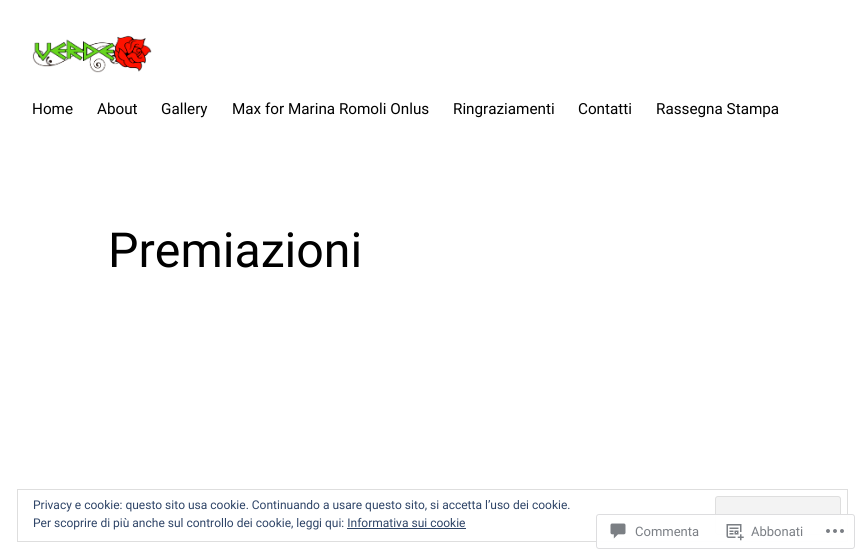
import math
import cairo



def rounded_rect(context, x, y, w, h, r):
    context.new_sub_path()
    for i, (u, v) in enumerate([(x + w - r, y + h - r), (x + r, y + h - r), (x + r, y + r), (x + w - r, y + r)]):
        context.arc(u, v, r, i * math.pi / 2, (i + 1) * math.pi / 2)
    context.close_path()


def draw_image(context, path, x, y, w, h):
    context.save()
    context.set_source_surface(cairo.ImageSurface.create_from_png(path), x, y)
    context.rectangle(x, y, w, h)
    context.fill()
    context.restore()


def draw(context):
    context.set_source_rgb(1, 1, 1)
    context.paint()
    draw_image(context, "images/1.png", 32, 35, 120, 38)
    context.rectangle(17.5, 489.5, 830, 52)
    context.set_source_rgb(222 / 255, 222 / 255, 222 / 255)
    context.set_line_width(1)
    context.stroke()
    context.set_source_rgb(243 / 255, 243 / 255, 243 / 255)
    rounded_rect(context, 715.5, 496.5, 125, 38, 2.5)
    context.fill_preserve()
    context.set_source_rgb(222 / 255, 222 / 255, 222 / 255)
    context.stroke()
    context.set_source_rgb(46 / 255, 68 / 255, 103 / 255)
    context.rectangle(347, 528, 119, 1)
    context.fill()
    context.set_source_rgba(1, 1, 1, 0.98)
    rounded_rect(context, 596, 514, 259, 35, 3)
    context.fill()
    rounded_rect(context, 596.5, 514.5, 258, 34, 2.5)
    context.set_source_rgba(220 / 255, 220 / 255, 222 / 255, 0.98)
    context.stroke()
    draw_image(context, "images/2.png", 610, 523, 16, 16)
    draw_image(context, "images/3.png", 726, 524, 18, 17)
    draw_image(context, "images/4.png", 826, 529, 18, 4)
    context.select_font_face("Roboto")
    context.set_font_size(15.25)
    context.set_source_rgb(0, 0, 0)
    context.move_to(32, 114)
    context.show_text("Home")
    context.move_to(97, 114)
    context.show_text("About")
    context.move_to(161, 114)
    context.show_text("Gallery")
    context.move_to(232, 114)
    context.show_text("Max for Marina Romoli Onlus")
    context.move_to(453, 114)
    context.show_text("Ringraziamenti")
    context.move_to(578, 114)
    context.show_text("Contatti")
    context.move_to(656, 114)
    context.show_text("Rassegna Stampa")
    context.set_font_size(48.25)
    context.move_to(108, 267)
    context.show_text("Premiazioni")
    context.set_font_size(12)
    context.set_source_rgb(46 / 255, 68 / 255, 103 / 255)
    context.move_to(33, 509)
    context.show_text("Privacy e cookie: questo sito usa cookie. Continuando a usare questo sito, si accetta l’uso dei cookie.")
    context.move_to(33, 527)
    context.show_text("Per scoprire di più anche sul controllo dei cookie, leggi qui: Informativa sui cookie")
    context.set_font_size(13)
    context.set_source_rgb(123 / 255, 127 / 255, 133 / 255)
    context.move_to(635, 536)
    context.show_text("Commenta")
    context.move_to(751, 536)
    context.show_text("Abbonati")


surface = cairo.ImageSurface(cairo.Format.RGB24, 865, 559)
context = cairo.Context(surface)
options = cairo.FontOptions()
options.set_hint_metrics(cairo.HintMetrics.OFF)
options.set_hint_style(cairo.HintStyle.NONE)
context.set_font_options(options)
context.set_miter_limit(4)
draw(context)
surface.write_to_png("out.png")
